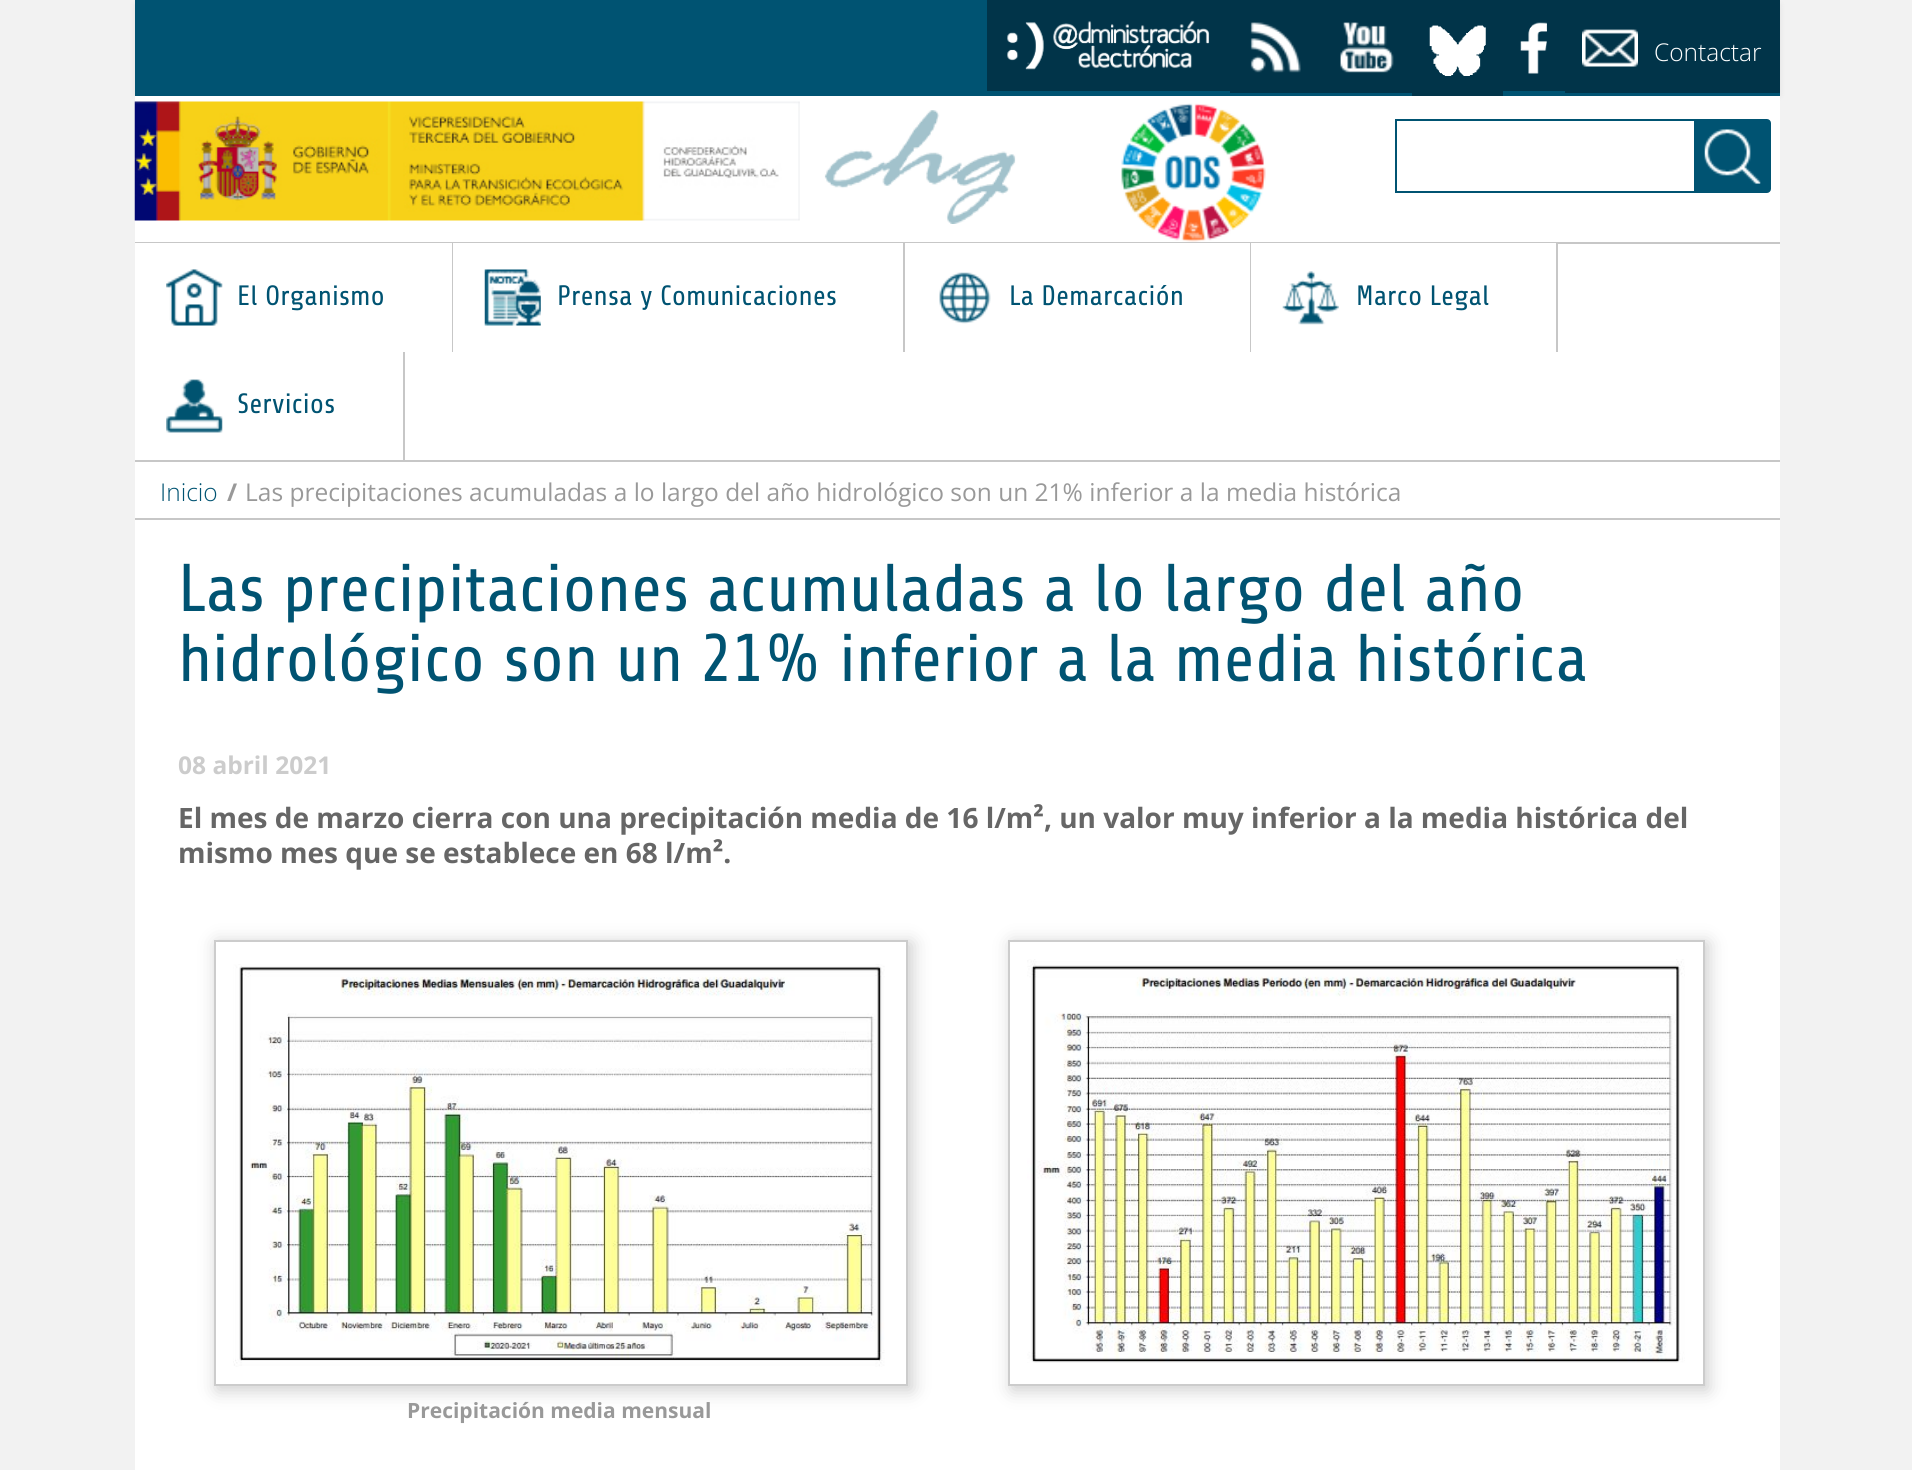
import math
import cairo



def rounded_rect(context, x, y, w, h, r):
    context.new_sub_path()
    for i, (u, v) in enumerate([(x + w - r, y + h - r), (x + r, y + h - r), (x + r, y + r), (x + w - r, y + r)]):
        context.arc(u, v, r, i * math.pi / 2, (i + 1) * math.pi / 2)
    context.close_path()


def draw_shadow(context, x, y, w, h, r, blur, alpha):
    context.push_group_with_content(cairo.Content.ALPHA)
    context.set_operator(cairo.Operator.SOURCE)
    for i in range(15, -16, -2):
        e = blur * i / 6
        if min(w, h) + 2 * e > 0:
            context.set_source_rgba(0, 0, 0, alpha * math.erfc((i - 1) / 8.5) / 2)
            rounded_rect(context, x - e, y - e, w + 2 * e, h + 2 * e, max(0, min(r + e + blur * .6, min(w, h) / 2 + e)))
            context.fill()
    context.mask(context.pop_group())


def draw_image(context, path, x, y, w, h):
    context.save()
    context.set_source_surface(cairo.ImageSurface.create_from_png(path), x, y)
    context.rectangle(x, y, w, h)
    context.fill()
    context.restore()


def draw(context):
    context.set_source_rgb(242 / 255, 242 / 255, 242 / 255)
    context.paint()
    context.set_source_rgb(1, 1, 1)
    context.rectangle(135, 520, 1645, 950)
    context.fill()
    context.set_source_rgb(0, 0, 0)
    draw_shadow(context, 135, 2, 1645, 96, 4, 3.5, 0.07)
    context.set_source_rgb(0, 83 / 255, 114 / 255)
    context.rectangle(135, 0, 1645, 96)
    context.fill()
    context.set_source_rgb(1 / 255, 52 / 255, 73 / 255)
    context.rectangle(987, 0, 243, 91)
    context.fill()
    draw_image(context, "images/1.png", 1007, 20, 203, 50)
    context.rectangle(1230, 0, 182, 93)
    context.fill()
    draw_image(context, "images/2.png", 1250, 22, 51, 51)
    context.rectangle(1412, 0, 91, 96)
    context.fill()
    draw_image(context, "images/3.png", 1429, 25, 57, 51)
    context.rectangle(1503, 0, 62, 91)
    context.fill()
    draw_image(context, "images/4.png", 1520, 22, 27, 52)
    draw_image(context, "images/5.png", 1340, 22, 54, 51)
    context.rectangle(1565, 0, 215, 93)
    context.fill()
    draw_image(context, "images/6.png", 1582, 29, 56, 38)
    context.set_source_rgb(1, 1, 1)
    context.rectangle(135, 96, 1645, 146)
    context.fill()
    draw_image(context, "images/7.png", 134, 101, 666, 120)
    draw_image(context, "images/8.png", 824, 110, 192, 114)
    draw_image(context, "images/9.png", 1121, 103, 145, 139)
    context.rectangle(1396, 120, 299, 72)
    context.set_source_rgb(0, 83 / 255, 114 / 255)
    context.stroke()
    context.new_path()
    context.move_to(1695, 120)
    context.line_to(1767, 120)
    context.curve_to(1768.5, 120, 1770, 121.5, 1770, 123)
    context.line_to(1770, 189)
    context.curve_to(1770, 190.5, 1768.5, 192, 1767, 192)
    context.line_to(1695, 192)
    context.close_path()
    context.fill_preserve()
    context.stroke()
    draw_image(context, "images/10.png", 1704, 129, 57, 55)
    context.set_source_rgb(1, 1, 1)
    context.rectangle(135, 244, 1645, 216)
    context.fill()
    context.set_source_rgb(199 / 255, 199 / 255, 199 / 255)
    context.rectangle(135, 242, 1645, 2)
    context.fill()
    context.rectangle(135, 460, 1645, 2)
    context.fill()
    context.rectangle(452, 243, 1, 109)
    context.fill()
    context.set_source_rgb(1, 1, 1)
    context.rectangle(135, 243, 317, 1)
    context.fill()
    draw_image(context, "images/11.png", 166, 269, 57, 57)
    context.set_source_rgb(199 / 255, 199 / 255, 199 / 255)
    context.rectangle(903, 243, 2, 109)
    context.fill()
    context.set_source_rgb(1, 1, 1)
    context.rectangle(453, 243, 450, 1)
    context.fill()
    draw_image(context, "images/12.png", 484, 269, 57, 57)
    context.set_source_rgb(199 / 255, 199 / 255, 199 / 255)
    context.rectangle(1250, 243, 1, 109)
    context.fill()
    context.set_source_rgb(1, 1, 1)
    context.rectangle(905, 243, 345, 1)
    context.fill()
    draw_image(context, "images/13.png", 939, 272, 52, 52)
    context.set_source_rgb(199 / 255, 199 / 255, 199 / 255)
    context.rectangle(1556, 243, 2, 109)
    context.fill()
    context.set_source_rgb(1, 1, 1)
    context.rectangle(1251, 243, 305, 1)
    context.fill()
    draw_image(context, "images/14.png", 1282, 271, 57, 54)
    context.set_source_rgb(199 / 255, 199 / 255, 199 / 255)
    context.rectangle(403, 352, 2, 108)
    context.fill()
    draw_image(context, "images/15.png", 166, 379, 57, 54)
    context.set_source_rgb(1, 1, 1)
    context.rectangle(135, 462, 1645, 56)
    context.fill()
    context.set_source_rgb(199 / 255, 199 / 255, 199 / 255)
    context.rectangle(135, 518, 1645, 2)
    context.fill()
    context.save()
    context.set_fill_rule(cairo.FillRule.EVEN_ODD)
    context.new_path()
    context.move_to(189, 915)
    context.line_to(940, 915)
    context.line_to(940, 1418)
    context.line_to(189, 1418)
    context.close_path()
    context.move_to(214, 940)
    context.line_to(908, 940)
    context.line_to(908, 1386)
    context.line_to(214, 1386)
    context.close_path()
    context.clip()
    context.set_source_rgb(204 / 255, 204 / 255, 204 / 255)
    draw_shadow(context, 217, 943, 695, 447, 0, 9, 1)
    context.restore()
    context.rectangle(215, 941, 692, 444)
    context.set_source_rgb(204 / 255, 204 / 255, 204 / 255)
    context.stroke()
    draw_image(context, "images/16.png", 233, 964, 652, 403)
    context.set_source_rgb(204 / 255, 204 / 255, 204 / 255)
    draw_shadow(context, 1012, 943, 696, 447, 0, 9, 1)
    context.set_source_rgb(1, 1, 1)
    context.rectangle(1009, 941, 695, 444)
    context.fill_preserve()
    context.set_source_rgb(204 / 255, 204 / 255, 204 / 255)
    context.stroke()
    draw_image(context, "images/17.png", 1027, 959, 658, 404)
    context.select_font_face("Open Sans Light")
    context.set_font_size(24.5)
    context.set_source_rgb(1, 1, 1)
    context.move_to(1654, 61)
    context.show_text("Contactar")
    context.select_font_face("Share")
    context.set_font_size(28)
    context.set_source_rgb(0, 83 / 255, 114 / 255)
    context.move_to(237, 305)
    context.show_text("El Organismo")
    context.move_to(557, 305)
    context.show_text("Prensa y Comunicaciones")
    context.move_to(1009, 305)
    context.show_text("La Demarcación")
    context.move_to(1356, 305)
    context.show_text("Marco Legal")
    context.move_to(237, 413)
    context.show_text("Servicios")
    context.select_font_face("Open Sans Light")
    context.set_font_size(24.5)
    context.move_to(160, 501)
    context.show_text("Inicio")
    context.select_font_face("Open Sans", cairo.FontSlant.NORMAL, cairo.FontWeight.BOLD)
    context.set_source_rgb(153 / 255, 153 / 255, 153 / 255)
    context.move_to(227, 501)
    context.show_text("/")
    context.select_font_face("Open Sans")
    context.move_to(245, 501)
    context.show_text("Las precipitaciones acumuladas a lo largo del año hidrológico son un 21% inferior a la media histórica")
    context.select_font_face("Share")
    context.set_font_size(67.4)
    context.set_source_rgb(0, 83 / 255, 114 / 255)
    context.move_to(178, 611)
    context.show_text("Las precipitaciones acumuladas a lo largo del año")
    context.move_to(178, 681)
    context.show_text("hidrológico son un 21% inferior a la media histórica")
    context.select_font_face("Open Sans", cairo.FontSlant.NORMAL, cairo.FontWeight.BOLD)
    context.set_font_size(24.5)
    context.set_source_rgb(204 / 255, 204 / 255, 204 / 255)
    context.move_to(178, 774)
    context.show_text("08 abril 2021")
    context.set_font_size(28)
    context.set_source_rgb(102 / 255, 102 / 255, 102 / 255)
    context.move_to(178, 828)
    context.show_text("El mes de marzo cierra con una precipitación media de 16 l/m², un valor muy inferior a la media histórica del")
    context.move_to(178, 863)
    context.show_text("mismo mes que se establece en 68 l/m².")
    context.set_font_size(21)
    context.set_source_rgb(153 / 255, 153 / 255, 153 / 255)
    context.move_to(407, 1418)
    context.show_text("Precipitación media mensual")


surface = cairo.ImageSurface(cairo.Format.RGB24, 1912, 1470)
context = cairo.Context(surface)
options = cairo.FontOptions()
options.set_hint_metrics(cairo.HintMetrics.OFF)
options.set_hint_style(cairo.HintStyle.NONE)
context.set_font_options(options)
context.set_miter_limit(4)
draw(context)
surface.write_to_png("out.png")
